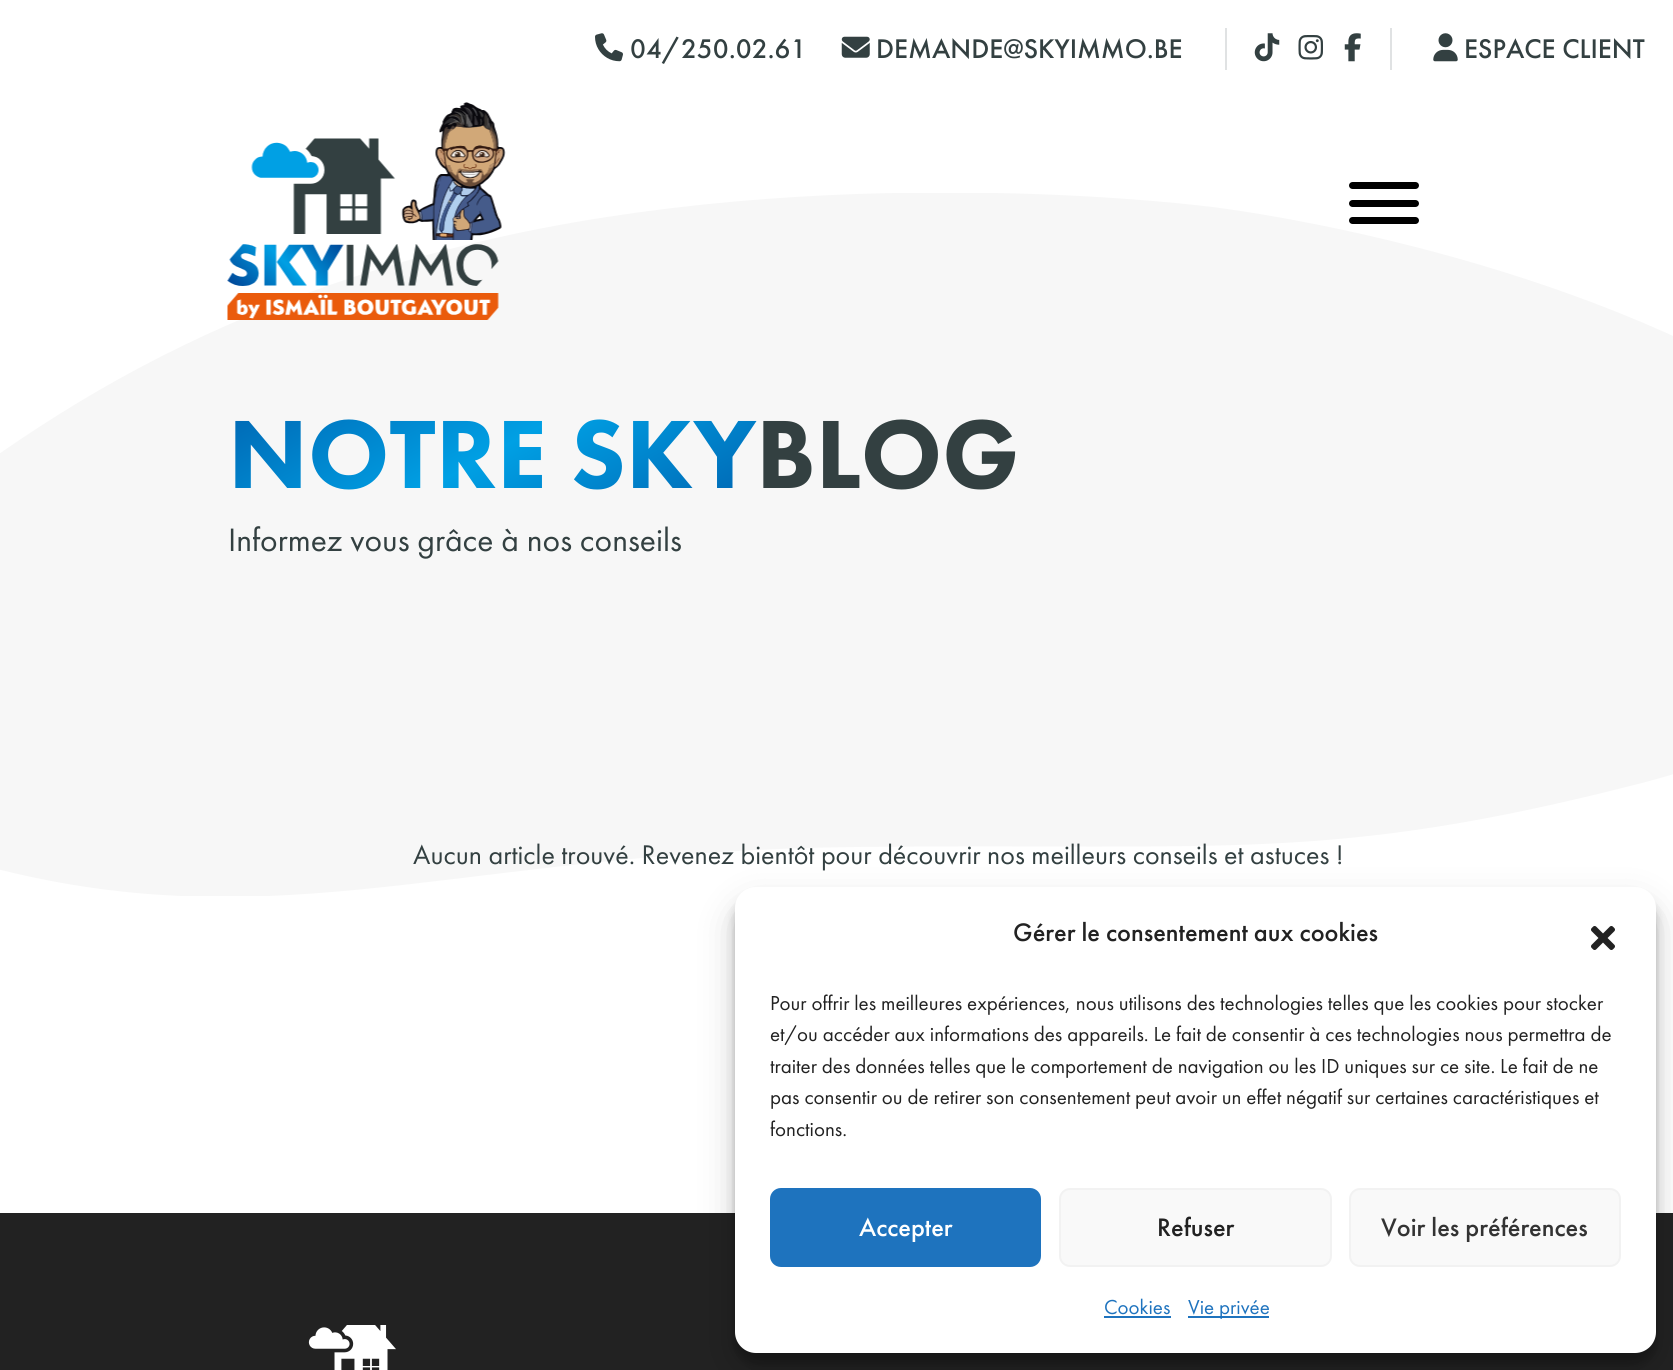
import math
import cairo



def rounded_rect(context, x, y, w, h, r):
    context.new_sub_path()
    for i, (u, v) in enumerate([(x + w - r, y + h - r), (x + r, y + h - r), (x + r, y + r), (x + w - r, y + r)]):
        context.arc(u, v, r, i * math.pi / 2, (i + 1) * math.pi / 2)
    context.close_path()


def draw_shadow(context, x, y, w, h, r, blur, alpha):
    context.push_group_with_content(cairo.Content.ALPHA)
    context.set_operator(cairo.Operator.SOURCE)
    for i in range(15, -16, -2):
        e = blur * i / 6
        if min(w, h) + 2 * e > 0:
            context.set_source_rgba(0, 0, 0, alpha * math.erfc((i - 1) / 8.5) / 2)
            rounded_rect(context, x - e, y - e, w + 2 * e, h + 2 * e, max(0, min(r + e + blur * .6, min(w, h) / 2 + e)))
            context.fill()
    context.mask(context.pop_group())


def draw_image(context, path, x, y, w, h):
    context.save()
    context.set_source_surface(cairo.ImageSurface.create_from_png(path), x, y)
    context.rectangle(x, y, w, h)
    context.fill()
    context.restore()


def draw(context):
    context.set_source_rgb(1, 1, 1)
    context.paint()
    draw_image(context, "images/1.png", 595, 33, 28, 29)
    draw_image(context, "images/2.png", 841, 36, 29, 22)
    context.set_source_rgb(224 / 255, 226 / 255, 227 / 255)
    context.rectangle(1390, 28, 2, 42)
    context.fill()
    context.rectangle(1225, 28, 2, 42)
    context.fill()
    draw_image(context, "images/3.png", 1254, 33, 26, 29)
    draw_image(context, "images/4.png", 1298, 35, 25, 25)
    draw_image(context, "images/5.png", 1344, 33, 17, 29)
    draw_image(context, "images/6.png", 1433, 33, 25, 29)
    context.save()
    context.rectangle(0, 193, 1673, 703)
    context.clip()
    context.set_source_rgb(247 / 255, 247 / 255, 247 / 255)
    context.new_path()
    context.move_to(1212, 207)
    context.curve_to(1212, 207, 857, 160, 509, 235)
    context.curve_to(161, 311, -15, 460, -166, 580)
    context.curve_to(-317, 700, -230, 822, 36, 878)
    context.curve_to(302, 933, 483, 851, 856, 847)
    context.curve_to(1229, 843, 1329, 863, 1638, 784)
    context.curve_to(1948, 705, 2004, 518, 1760, 380)
    context.curve_to(1516, 242, 1212, 207, 1212, 207)
    context.fill()
    context.restore()
    draw_image(context, "images/7.png", 227, 102, 279, 218)
    context.set_source_rgb(0, 0, 0)
    rounded_rect(context, 1349, 182, 70, 7, 3.5)
    context.fill()
    rounded_rect(context, 1349, 200, 70, 7, 3.5)
    context.fill()
    rounded_rect(context, 1349, 217, 70, 7, 3.5)
    context.fill()
    context.set_source_rgb(34 / 255, 34 / 255, 34 / 255)
    context.rectangle(0, 1213, 1673, 157)
    context.fill()
    context.set_source_rgb(0, 0, 0)
    draw_shadow(context, 735, 898, 921, 465, 21, 5, 0.23)
    draw_shadow(context, 735, 905, 921, 465, 21, 17.5, 0.19)
    context.set_source_rgb(1, 1, 1)
    rounded_rect(context, 735, 887, 921, 466, 21)
    context.fill()
    draw_image(context, "images/8.png", 1591, 926, 24, 24)
    context.set_source_rgb(30 / 255, 115 / 255, 190 / 255)
    rounded_rect(context, 771, 1189, 269, 77, 10)
    context.fill_preserve()
    context.stroke()
    context.set_source_rgb(249 / 255, 249 / 255, 249 / 255)
    rounded_rect(context, 1060, 1189, 271, 77, 10)
    context.fill_preserve()
    context.set_source_rgb(242 / 255, 242 / 255, 242 / 255)
    context.stroke()
    context.set_source_rgb(249 / 255, 249 / 255, 249 / 255)
    rounded_rect(context, 1350, 1189, 270, 77, 10)
    context.fill_preserve()
    context.set_source_rgb(242 / 255, 242 / 255, 242 / 255)
    context.stroke()
    context.set_source_rgb(30 / 255, 115 / 255, 190 / 255)
    context.rectangle(1104, 1316, 67, 2)
    context.fill()
    context.rectangle(1188, 1316, 81, 2)
    context.fill()
    draw_image(context, "images/9.png", 308, 1325, 88, 45)
    context.select_font_face("Futura PT Medium")
    context.set_font_size(28)
    context.set_source_rgb(51 / 255, 64 / 255, 65 / 255)
    context.move_to(630, 58)
    context.show_text("04/250.02.61")
    context.move_to(876, 58)
    context.show_text("DEMANDE@SKYIMMO.BE")
    context.move_to(1464, 58)
    context.show_text("ESPACE CLIENT")
    context.select_font_face("Futura PT Black")
    context.set_font_size(100.5)
    gradient = cairo.LinearGradient(616, 679, 367, 228)
    gradient.add_color_stop_rgba(0, 0, 72 / 255, 153 / 255, 1)
    gradient.add_color_stop_rgba(0.5, 0, 160 / 255, 228 / 255, 1)
    gradient.add_color_stop_rgba(1, 0, 72 / 255, 153 / 255, 1)
    context.set_source(gradient)
    context.move_to(228, 488)
    context.show_text("NOTRE SKY")
    context.set_source_rgb(51 / 255, 64 / 255, 65 / 255)
    context.move_to(756, 488)
    context.show_text("BLOG")
    context.select_font_face("Futura PT")
    context.set_font_size(33.6)
    context.move_to(228, 551)
    context.show_text("Informez vous grâce à nos conseils")
    context.set_font_size(28)
    context.move_to(413, 864)
    context.show_text("Aucun article trouvé. Revenez bientôt pour découvrir nos meilleurs conseils et astuces !")
    context.select_font_face("Futura PT Medium")
    context.set_font_size(26.25)
    context.set_source_rgb(34 / 255, 34 / 255, 34 / 255)
    context.move_to(1013, 941)
    context.show_text("Gérer le consentement aux cookies")
    context.select_font_face("Futura PT")
    context.set_font_size(21)
    context.move_to(770, 1010)
    context.show_text("Pour offrir les meilleures expériences, nous utilisons des technologies telles que les cookies pour stocker")
    context.move_to(770, 1041)
    context.show_text("et/ou accéder aux informations des appareils. Le fait de consentir à ces technologies nous permettra de")
    context.move_to(770, 1073)
    context.show_text("traiter des données telles que le comportement de navigation ou les ID uniques sur ce site. Le fait de ne")
    context.move_to(770, 1104)
    context.show_text("pas consentir ou de retirer son consentement peut avoir un effet négatif sur certaines caractéristiques et")
    context.move_to(770, 1136)
    context.show_text("fonctions.")
    context.select_font_face("Futura PT Medium")
    context.set_font_size(26.25)
    context.set_source_rgb(1, 1, 1)
    context.move_to(859, 1236)
    context.show_text("Accepter")
    context.set_source_rgb(34 / 255, 34 / 255, 34 / 255)
    context.move_to(1157, 1236)
    context.show_text("Refuser")
    context.set_source_rgb(51 / 255, 51 / 255, 51 / 255)
    context.move_to(1381, 1236)
    context.show_text("Voir les préférences")
    context.select_font_face("Futura PT")
    context.set_font_size(21)
    context.set_source_rgb(30 / 255, 115 / 255, 190 / 255)
    context.move_to(1104, 1314)
    context.show_text("Cookies")
    context.move_to(1188, 1314)
    context.show_text("Vie privée")


surface = cairo.ImageSurface(cairo.Format.RGB24, 1673, 1370)
context = cairo.Context(surface)
options = cairo.FontOptions()
options.set_hint_metrics(cairo.HintMetrics.OFF)
options.set_hint_style(cairo.HintStyle.NONE)
context.set_font_options(options)
context.set_miter_limit(4)
draw(context)
surface.write_to_png("out.png")
